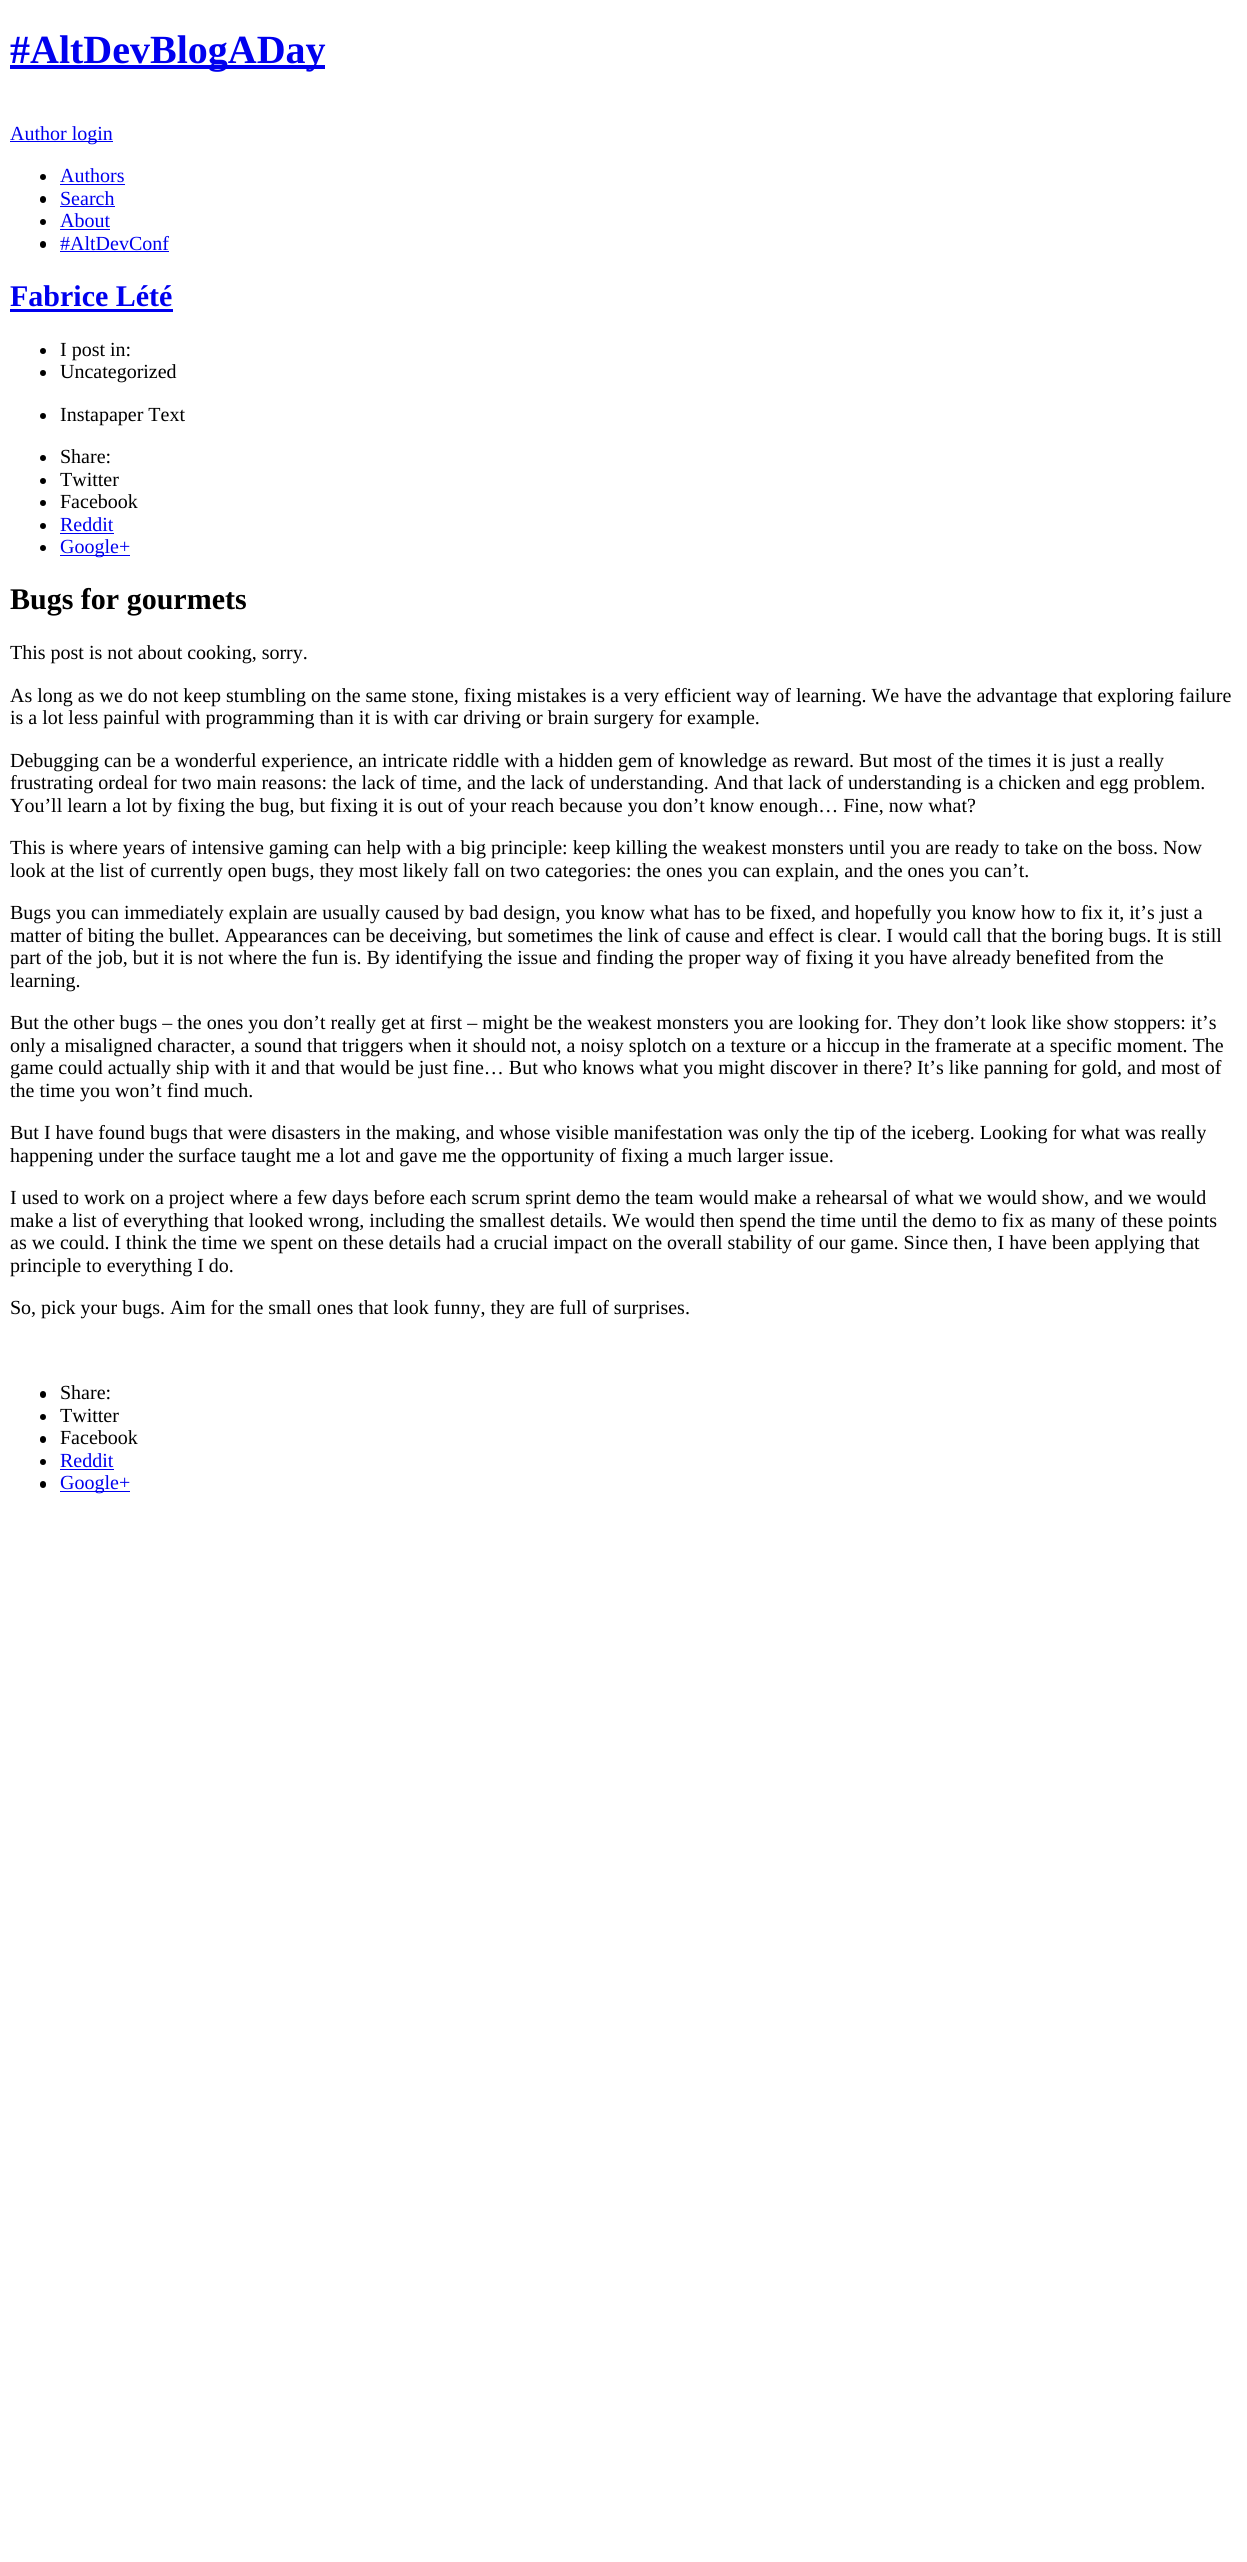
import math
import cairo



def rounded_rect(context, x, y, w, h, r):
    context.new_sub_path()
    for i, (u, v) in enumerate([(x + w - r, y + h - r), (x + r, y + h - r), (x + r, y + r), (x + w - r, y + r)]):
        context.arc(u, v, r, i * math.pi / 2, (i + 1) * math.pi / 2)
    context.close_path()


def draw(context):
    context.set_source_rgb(1, 1, 1)
    context.paint()
    context.set_source_rgb(0, 0, 238 / 255)
    context.rectangle(10, 65, 315, 4)
    context.fill()
    context.rectangle(10, 141, 103, 1)
    context.fill()
    context.set_source_rgb(0, 0, 0)
    context.arc(43, 177, 3, 0, 2 * math.pi)
    context.fill()
    context.set_source_rgb(0, 0, 238 / 255)
    context.rectangle(60, 184, 65, 1)
    context.fill()
    context.set_source_rgb(0, 0, 0)
    rounded_rect(context, 40, 196, 6, 7, 3)
    context.fill()
    context.set_source_rgb(0, 0, 238 / 255)
    context.rectangle(60, 206, 55, 1)
    context.fill()
    context.set_source_rgb(0, 0, 0)
    context.arc(43, 222, 3, 0, 2 * math.pi)
    context.fill()
    context.set_source_rgb(0, 0, 238 / 255)
    context.rectangle(60, 229, 50, 1)
    context.fill()
    context.set_source_rgb(0, 0, 0)
    rounded_rect(context, 40, 241, 6, 7, 3)
    context.fill()
    context.set_source_rgb(0, 0, 238 / 255)
    context.rectangle(60, 251, 109, 1)
    context.fill()
    context.rectangle(10, 309, 163, 3)
    context.fill()
    context.set_source_rgb(0, 0, 0)
    context.arc(43, 351, 3, 0, 2 * math.pi)
    context.fill()
    context.arc(43, 373, 3, 0, 2 * math.pi)
    context.fill()
    context.arc(43, 416, 3, 0, 2 * math.pi)
    context.fill()
    context.arc(43, 458, 3, 0, 2 * math.pi)
    context.fill()
    context.arc(43, 481, 3, 0, 2 * math.pi)
    context.fill()
    context.arc(43, 503, 3, 0, 2 * math.pi)
    context.fill()
    context.arc(43, 526, 3, 0, 2 * math.pi)
    context.fill()
    context.set_source_rgb(0, 0, 238 / 255)
    context.rectangle(60, 533, 54, 1)
    context.fill()
    context.set_source_rgb(0, 0, 0)
    context.arc(43, 548, 3, 0, 2 * math.pi)
    context.fill()
    context.set_source_rgb(0, 0, 238 / 255)
    context.rectangle(60, 555, 70, 1)
    context.fill()
    context.set_source_rgb(0, 0, 0)
    rounded_rect(context, 40, 1391, 6, 7, 3)
    context.fill()
    context.arc(43, 1417, 3, 0, 2 * math.pi)
    context.fill()
    rounded_rect(context, 40, 1436, 6, 7, 3)
    context.fill()
    context.arc(43, 1462, 3, 0, 2 * math.pi)
    context.fill()
    context.set_source_rgb(0, 0, 238 / 255)
    context.rectangle(60, 1469, 54, 1)
    context.fill()
    context.set_source_rgb(0, 0, 0)
    rounded_rect(context, 40, 1481, 6, 7, 3)
    context.fill()
    context.set_source_rgb(0, 0, 238 / 255)
    context.rectangle(60, 1491, 70, 1)
    context.fill()
    context.select_font_face("Liberation Serif", cairo.FontSlant.NORMAL, cairo.FontWeight.BOLD)
    context.set_font_size(40)
    context.move_to(10, 63)
    context.show_text("#AltDevBlogADay")
    context.select_font_face("Liberation Serif")
    context.set_font_size(20)
    context.move_to(10, 140)
    context.show_text("Author login")
    context.move_to(60, 182)
    context.show_text("Authors")
    context.move_to(60, 205)
    context.show_text("Search")
    context.move_to(60, 227)
    context.show_text("About")
    context.move_to(60, 250)
    context.show_text("#AltDevConf")
    context.select_font_face("Liberation Serif", cairo.FontSlant.NORMAL, cairo.FontWeight.BOLD)
    context.set_font_size(30)
    context.move_to(10, 306)
    context.show_text("Fabrice Lété")
    context.select_font_face("Liberation Serif")
    context.set_font_size(20)
    context.set_source_rgb(0, 0, 0)
    context.move_to(60, 356)
    context.show_text("I post in:")
    context.move_to(60, 378)
    context.show_text("Uncategorized")
    context.move_to(60, 421)
    context.show_text("Instapaper Text")
    context.move_to(60, 463)
    context.show_text("Share:")
    context.move_to(60, 486)
    context.show_text("Twitter")
    context.move_to(60, 508)
    context.show_text("Facebook")
    context.set_source_rgb(0, 0, 238 / 255)
    context.move_to(60, 531)
    context.show_text("Reddit")
    context.move_to(60, 553)
    context.show_text("Google+")
    context.select_font_face("Liberation Serif", cairo.FontSlant.NORMAL, cairo.FontWeight.BOLD)
    context.set_font_size(30)
    context.set_source_rgb(0, 0, 0)
    context.move_to(10, 609)
    context.show_text("Bugs for gourmets")
    context.select_font_face("Liberation Serif")
    context.set_font_size(20)
    context.move_to(10, 659)
    context.show_text("This post is not about cooking, sorry.")
    context.move_to(10, 702)
    context.show_text("As long as we do not keep stumbling on the same stone, fixing mistakes is a very efficient way of learning. We have the advantage that exploring failure")
    context.move_to(10, 724)
    context.show_text("is a lot less painful with programming than it is with car driving or brain surgery for example.")
    context.move_to(10, 767)
    context.show_text("Debugging can be a wonderful experience, an intricate riddle with a hidden gem of knowledge as reward. But most of the times it is just a really")
    context.move_to(10, 789)
    context.show_text("frustrating ordeal for two main reasons: the lack of time, and the lack of understanding. And that lack of understanding is a chicken and egg problem.")
    context.move_to(10, 812)
    context.show_text("You’ll learn a lot by fixing the bug, but fixing it is out of your reach because you don’t know enough… Fine, now what?")
    context.move_to(10, 854)
    context.show_text("This is where years of intensive gaming can help with a big principle: keep killing the weakest monsters until you are ready to take on the boss. Now")
    context.move_to(10, 877)
    context.show_text("look at the list of currently open bugs, they most likely fall on two categories: the ones you can explain, and the ones you can’t.")
    context.move_to(10, 919)
    context.show_text("Bugs you can immediately explain are usually caused by bad design, you know what has to be fixed, and hopefully you know how to fix it, it’s just a")
    context.move_to(10, 942)
    context.show_text("matter of biting the bullet. Appearances can be deceiving, but sometimes the link of cause and effect is clear. I would call that the boring bugs. It is still")
    context.move_to(10, 964)
    context.show_text("part of the job, but it is not where the fun is. By identifying the issue and finding the proper way of fixing it you have already benefited from the")
    context.move_to(10, 987)
    context.show_text("learning.")
    context.move_to(10, 1029)
    context.show_text("But the other bugs – the ones you don’t really get at first – might be the weakest monsters you are looking for. They don’t look like show stoppers: it’s")
    context.move_to(10, 1052)
    context.show_text("only a misaligned character, a sound that triggers when it should not, a noisy splotch on a texture or a hiccup in the framerate at a specific moment. The")
    context.move_to(10, 1074)
    context.show_text("game could actually ship with it and that would be just fine… But who knows what you might discover in there? It’s like panning for gold, and most of")
    context.move_to(10, 1097)
    context.show_text("the time you won’t find much.")
    context.move_to(10, 1139)
    context.show_text("But I have found bugs that were disasters in the making, and whose visible manifestation was only the tip of the iceberg. Looking for what was really")
    context.move_to(10, 1162)
    context.show_text("happening under the surface taught me a lot and gave me the opportunity of fixing a much larger issue.")
    context.move_to(10, 1204)
    context.show_text("I used to work on a project where a few days before each scrum sprint demo the team would make a rehearsal of what we would show, and we would")
    context.move_to(10, 1227)
    context.show_text("make a list of everything that looked wrong, including the smallest details. We would then spend the time until the demo to fix as many of these points")
    context.move_to(10, 1249)
    context.show_text("as we could. I think the time we spent on these details had a crucial impact on the overall stability of our game. Since then, I have been applying that")
    context.move_to(10, 1272)
    context.show_text("principle to everything I do.")
    context.move_to(10, 1314)
    context.show_text("So, pick your bugs. Aim for the small ones that look funny, they are full of surprises.")
    context.move_to(60, 1399)
    context.show_text("Share:")
    context.move_to(60, 1422)
    context.show_text("Twitter")
    context.move_to(60, 1444)
    context.show_text("Facebook")
    context.set_source_rgb(0, 0, 238 / 255)
    context.move_to(60, 1467)
    context.show_text("Reddit")
    context.move_to(60, 1489)
    context.show_text("Google+")


surface = cairo.ImageSurface(cairo.Format.RGB24, 1247, 2562)
context = cairo.Context(surface)
options = cairo.FontOptions()
options.set_hint_metrics(cairo.HintMetrics.OFF)
options.set_hint_style(cairo.HintStyle.NONE)
context.set_font_options(options)
context.set_miter_limit(4)
draw(context)
surface.write_to_png("out.png")
